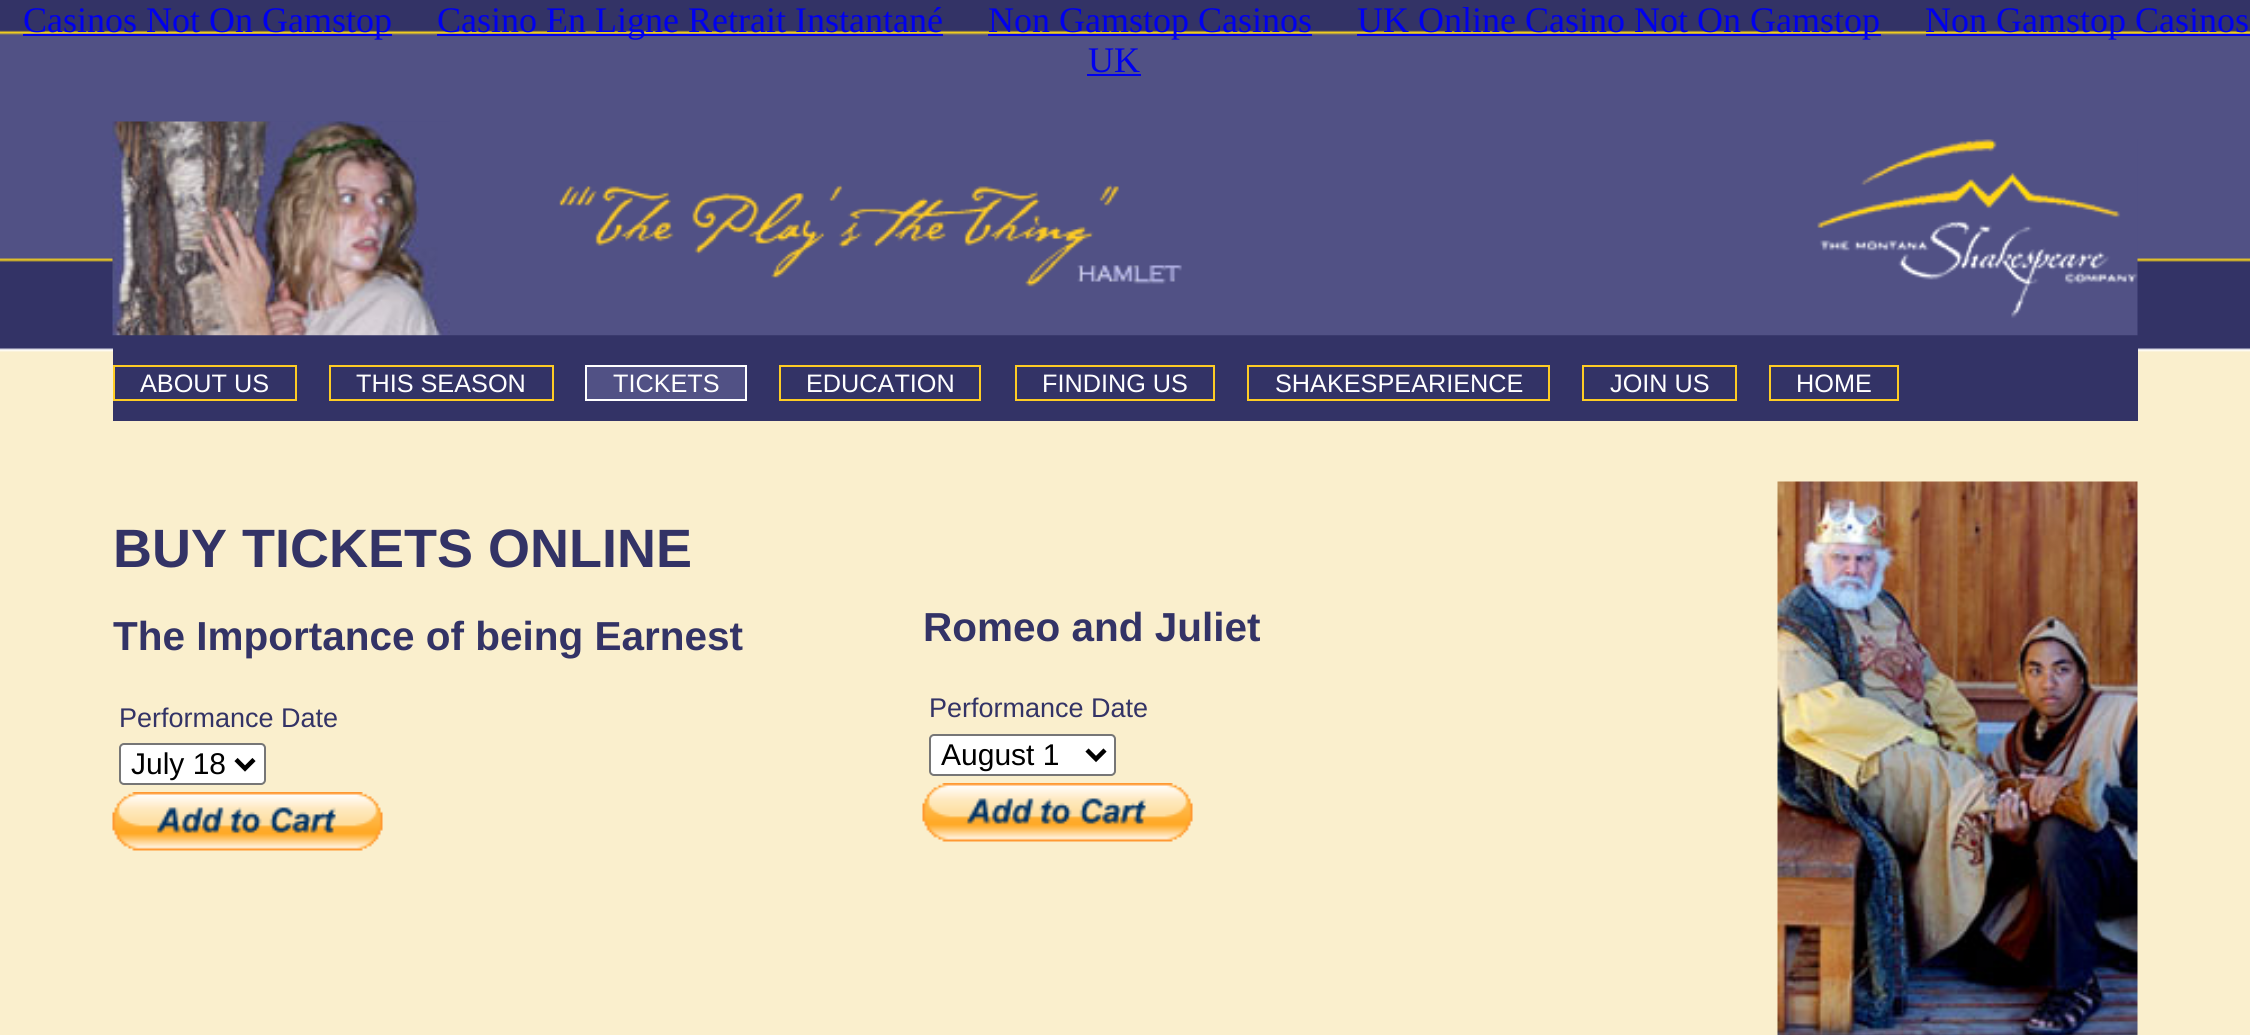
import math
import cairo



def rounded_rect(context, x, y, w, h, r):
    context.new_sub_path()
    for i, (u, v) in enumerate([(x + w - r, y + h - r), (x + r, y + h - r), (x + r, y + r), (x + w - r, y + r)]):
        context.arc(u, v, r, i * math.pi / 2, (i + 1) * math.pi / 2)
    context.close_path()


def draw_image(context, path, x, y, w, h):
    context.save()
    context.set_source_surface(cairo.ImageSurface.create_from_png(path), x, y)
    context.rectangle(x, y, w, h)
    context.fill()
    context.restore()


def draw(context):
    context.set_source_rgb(1, 1, 1)
    context.paint()
    draw_image(context, "images/1.png", 0, 0, 2250, 455)
    context.set_source_rgb(0, 0, 238 / 255)
    context.rectangle(23, 34, 369, 2)
    context.fill()
    context.rectangle(437, 34, 506, 2)
    context.fill()
    context.rectangle(988, 34, 324, 2)
    context.fill()
    context.rectangle(1357, 34, 524, 2)
    context.fill()
    context.rectangle(1926, 34, 324, 2)
    context.fill()
    context.rectangle(1087, 74, 54, 2)
    context.fill()
    draw_image(context, "images/2.png", 112, 121, 338, 215)
    draw_image(context, "images/3.png", 450, 139, 1688, 197)
    context.set_source_rgb(51 / 255, 51 / 255, 102 / 255)
    context.rectangle(113, 348, 2025, 73)
    context.fill()
    context.rectangle(114, 366, 182, 34)
    context.set_source_rgb(254 / 255, 204 / 255, 37 / 255)
    context.stroke()
    context.rectangle(330, 366, 223, 34)
    context.stroke()
    context.set_source_rgb(81 / 255, 81 / 255, 133 / 255)
    context.rectangle(586, 366, 160, 34)
    context.fill_preserve()
    context.set_source_rgb(1, 1, 1)
    context.stroke()
    context.rectangle(780, 366, 200, 34)
    context.set_source_rgb(254 / 255, 204 / 255, 37 / 255)
    context.stroke()
    context.rectangle(1016, 366, 198, 34)
    context.stroke()
    context.rectangle(1248, 366, 301, 34)
    context.stroke()
    context.rectangle(1583, 366, 153, 34)
    context.stroke()
    context.rectangle(1770, 366, 128, 34)
    context.stroke()
    context.set_source_rgb(250 / 255, 239 / 255, 205 / 255)
    context.rectangle(0, 455, 2250, 580)
    context.fill()
    context.set_source_rgb(1, 1, 1)
    rounded_rect(context, 120, 744, 145, 40, 4)
    context.fill_preserve()
    context.set_source_rgb(118 / 255, 118 / 255, 118 / 255)
    context.stroke()
    context.new_path()
    context.move_to(236, 759.5)
    context.line_to(245, 768.5)
    context.line_to(254, 759.5)
    context.set_source_rgb(0, 0, 0)
    context.set_line_width(4.5)
    context.stroke()
    draw_image(context, "images/4.png", 112, 792, 271, 59)
    context.set_source_rgb(1, 1, 1)
    rounded_rect(context, 930, 735, 185, 40, 4)
    context.fill_preserve()
    context.set_source_rgb(118 / 255, 118 / 255, 118 / 255)
    context.set_line_width(2)
    context.stroke()
    context.new_path()
    context.move_to(1087, 750)
    context.line_to(1096, 759)
    context.line_to(1105, 750)
    context.set_source_rgb(0, 0, 0)
    context.set_line_width(4.5)
    context.stroke()
    draw_image(context, "images/5.png", 922, 783, 271, 59)
    draw_image(context, "images/6.png", 1777, 481, 361, 554)
    context.select_font_face("Liberation Serif")
    context.set_font_size(36)
    context.set_source_rgb(0, 0, 238 / 255)
    context.move_to(23, 32)
    context.show_text("Casinos Not On Gamstop")
    context.move_to(437, 32)
    context.show_text("Casino En Ligne Retrait Instantané")
    context.move_to(988, 32)
    context.show_text("Non Gamstop Casinos")
    context.move_to(1357, 32)
    context.show_text("UK Online Casino Not On Gamstop")
    context.move_to(1925, 32)
    context.show_text("Non Gamstop Casinos")
    context.move_to(1088, 72)
    context.show_text("UK")
    context.select_font_face("Liberation Sans")
    context.set_font_size(25.25)
    context.set_source_rgb(1, 1, 1)
    context.move_to(140, 392)
    context.show_text("ABOUT US")
    context.move_to(356, 392)
    context.show_text("THIS SEASON")
    context.move_to(613, 392)
    context.show_text("TICKETS")
    context.move_to(806, 392)
    context.show_text("EDUCATION")
    context.move_to(1042, 392)
    context.show_text("FINDING US")
    context.move_to(1275, 392)
    context.show_text("SHAKESPEARIENCE")
    context.move_to(1610, 392)
    context.show_text("JOIN US")
    context.move_to(1796, 392)
    context.show_text("HOME")
    context.select_font_face("Liberation Sans", cairo.FontSlant.NORMAL, cairo.FontWeight.BOLD)
    context.set_font_size(54)
    context.set_source_rgb(51 / 255, 51 / 255, 102 / 255)
    context.move_to(113, 567)
    context.show_text("BUY TICKETS ONLINE")
    context.set_font_size(40.5)
    context.move_to(113, 650)
    context.show_text("The Importance of being Earnest")
    context.select_font_face("Liberation Sans")
    context.set_font_size(27)
    context.move_to(119, 727)
    context.show_text("Performance Date")
    context.set_font_size(30)
    context.set_source_rgb(0, 0, 0)
    context.move_to(131, 774)
    context.show_text("July 18")
    context.select_font_face("Liberation Sans", cairo.FontSlant.NORMAL, cairo.FontWeight.BOLD)
    context.set_font_size(40.5)
    context.set_source_rgb(51 / 255, 51 / 255, 102 / 255)
    context.move_to(923, 641)
    context.show_text("Romeo and Juliet")
    context.select_font_face("Liberation Sans")
    context.set_font_size(27)
    context.move_to(929, 717)
    context.show_text("Performance Date")
    context.set_font_size(30)
    context.set_source_rgb(0, 0, 0)
    context.move_to(941, 765)
    context.show_text("August 1")


surface = cairo.ImageSurface(cairo.Format.RGB24, 2250, 1035)
context = cairo.Context(surface)
options = cairo.FontOptions()
options.set_hint_metrics(cairo.HintMetrics.OFF)
options.set_hint_style(cairo.HintStyle.NONE)
context.set_font_options(options)
context.set_miter_limit(4)
draw(context)
surface.write_to_png("out.png")
